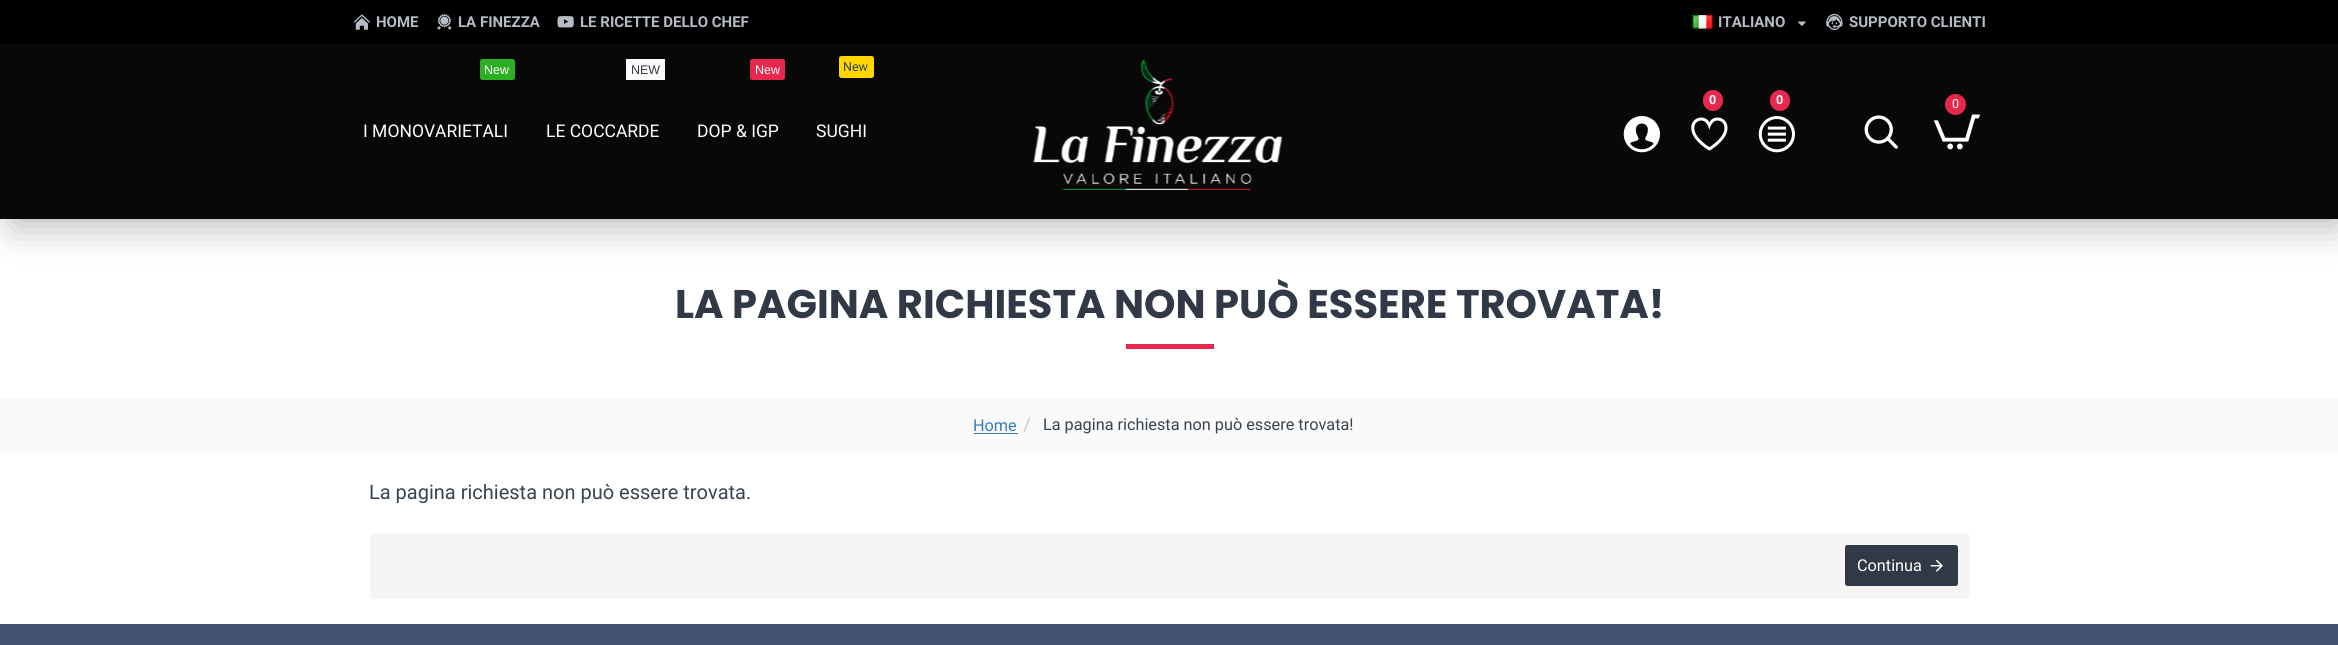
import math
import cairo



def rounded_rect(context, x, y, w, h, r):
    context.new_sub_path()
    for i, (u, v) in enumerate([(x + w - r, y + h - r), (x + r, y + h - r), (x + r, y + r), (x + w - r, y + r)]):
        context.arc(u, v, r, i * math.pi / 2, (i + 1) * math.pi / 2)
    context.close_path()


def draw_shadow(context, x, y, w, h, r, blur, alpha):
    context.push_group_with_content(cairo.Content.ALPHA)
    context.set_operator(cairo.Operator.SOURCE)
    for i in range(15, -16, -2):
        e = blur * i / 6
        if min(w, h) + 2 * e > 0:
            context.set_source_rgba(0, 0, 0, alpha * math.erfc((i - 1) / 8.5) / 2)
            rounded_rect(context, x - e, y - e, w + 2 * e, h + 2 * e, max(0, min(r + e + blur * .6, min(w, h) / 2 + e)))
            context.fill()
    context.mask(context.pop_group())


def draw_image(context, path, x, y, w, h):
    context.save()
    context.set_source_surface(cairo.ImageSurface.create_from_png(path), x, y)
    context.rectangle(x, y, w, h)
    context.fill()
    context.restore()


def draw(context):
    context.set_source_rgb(1, 1, 1)
    context.paint()
    context.set_source_rgb(0, 0, 0)
    draw_shadow(context, 13, 19, 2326, 206, 0, 19, 0.3)
    context.set_source_rgb(8 / 255, 8 / 255, 8 / 255)
    context.rectangle(0, 44, 2338, 175)
    context.fill()
    context.set_source_rgb(0, 0, 0)
    context.rectangle(0, 0, 2338, 44)
    context.fill()
    draw_image(context, "images/1.png", 353, 14, 17, 16)
    draw_image(context, "images/2.png", 437, 14, 15, 16)
    draw_image(context, "images/3.png", 557, 16, 17, 12)
    draw_image(context, "images/4.png", 1692, 15, 21, 14)
    draw_image(context, "images/5.png", 1798, 21, 8, 5)
    draw_image(context, "images/6.png", 1826, 13, 17, 18)
    context.set_source_rgb(46 / 255, 175 / 255, 35 / 255)
    rounded_rect(context, 480, 59, 35, 21, 2.5)
    context.fill()
    context.set_source_rgb(250 / 255, 250 / 255, 250 / 255)
    context.rectangle(626, 59, 39, 21)
    context.fill()
    context.set_source_rgb(231 / 255, 40 / 255, 77 / 255)
    rounded_rect(context, 750, 59, 35, 21, 2.5)
    context.fill()
    context.set_source_rgb(1, 214 / 255, 0)
    rounded_rect(context, 839, 56, 35, 22, 2.5)
    context.fill()
    draw_image(context, "images/7.png", 1033, 60, 250, 130)
    context.set_source_rgb(231 / 255, 40 / 255, 77 / 255)
    rounded_rect(context, 1703, 90, 20, 21, 10)
    context.fill()
    draw_image(context, "images/8.png", 1691, 117, 37, 34)
    rounded_rect(context, 1770, 90, 20, 21, 10)
    context.fill()
    draw_image(context, "images/9.png", 1758, 116, 37, 37)
    draw_image(context, "images/10.png", 1623, 116, 37, 37)
    context.arc(1955.5, 104.5, 10.5, 0, 2 * math.pi)
    context.fill()
    draw_image(context, "images/11.png", 1933, 114, 48, 36)
    draw_image(context, "images/12.png", 1864, 115, 34, 34)
    context.rectangle(1126, 344, 88, 5)
    context.fill()
    context.set_source_rgb(250 / 255, 250 / 255, 250 / 255)
    context.rectangle(0, 398, 2338, 55)
    context.fill()
    context.set_source_rgb(51 / 255, 122 / 255, 183 / 255)
    context.rectangle(974, 433, 44, 1)
    context.fill()
    context.set_source_rgb(245 / 255, 245 / 255, 245 / 255)
    rounded_rect(context, 370, 533, 1600, 66, 4)
    context.fill()
    context.set_source_rgb(49 / 255, 56 / 255, 70 / 255)
    rounded_rect(context, 1845, 545, 113, 41, 2.5)
    context.fill()
    draw_image(context, "images/13.png", 1930, 559, 13, 13)
    context.set_source_rgb(64 / 255, 81 / 255, 114 / 255)
    context.rectangle(0, 624, 2338, 21)
    context.fill()
    context.select_font_face("Roboto", cairo.FontSlant.NORMAL, cairo.FontWeight.BOLD)
    context.set_font_size(15)
    context.set_source_rgb(182 / 255, 187 / 255, 198 / 255)
    context.move_to(376, 27)
    context.show_text("HOME")
    context.move_to(458, 27)
    context.show_text("LA FINEZZA")
    context.move_to(580, 27)
    context.show_text("LE RICETTE DELLO CHEF")
    context.move_to(1718, 27)
    context.show_text("ITALIANO")
    context.move_to(1849, 27)
    context.show_text("SUPPORTO CLIENTI")
    context.select_font_face("Liberation Sans")
    context.set_font_size(12.5)
    context.set_source_rgb(1, 1, 1)
    context.move_to(484, 74)
    context.show_text("New")
    context.select_font_face("Roboto")
    context.set_font_size(17.5)
    context.move_to(363, 137)
    context.show_text("I MONOVARIETALI")
    context.select_font_face("Liberation Sans")
    context.set_font_size(12.5)
    context.set_source_rgb(49 / 255, 56 / 255, 70 / 255)
    context.move_to(631, 74)
    context.show_text("NEW")
    context.select_font_face("Roboto")
    context.set_font_size(17.5)
    context.set_source_rgb(1, 1, 1)
    context.move_to(546, 137)
    context.show_text("LE COCCARDE")
    context.select_font_face("Liberation Sans")
    context.set_font_size(12.5)
    context.move_to(755, 74)
    context.show_text("New")
    context.select_font_face("Roboto")
    context.set_font_size(17.5)
    context.move_to(697, 137)
    context.show_text("DOP & IGP")
    context.set_font_size(12.5)
    context.set_source_rgb(56 / 255, 68 / 255, 79 / 255)
    context.move_to(843, 71)
    context.show_text("New")
    context.set_font_size(17.5)
    context.set_source_rgb(1, 1, 1)
    context.move_to(816, 137)
    context.show_text("SUGHI")
    context.select_font_face("Roboto", cairo.FontSlant.NORMAL, cairo.FontWeight.BOLD)
    context.set_font_size(12.5)
    context.move_to(1709, 104)
    context.show_text("0")
    context.move_to(1776, 104)
    context.show_text("0")
    context.select_font_face("Roboto")
    context.move_to(1952, 108)
    context.show_text("0")
    context.select_font_face("Poppins", cairo.FontSlant.NORMAL, cairo.FontWeight.BOLD)
    context.set_font_size(40)
    context.set_source_rgb(49 / 255, 56 / 255, 70 / 255)
    context.move_to(675, 318)
    context.show_text("LA PAGINA RICHIESTA NON PUÒ ESSERE TROVATA!")
    context.select_font_face("Roboto")
    context.set_font_size(16.25)
    context.set_source_rgb(51 / 255, 122 / 255, 183 / 255)
    context.move_to(973, 431)
    context.show_text("Home")
    context.set_font_size(20)
    context.set_source_rgb(204 / 255, 204 / 255, 204 / 255)
    context.move_to(1023, 431)
    context.show_text("/")
    context.set_font_size(16.25)
    context.set_source_rgb(56 / 255, 68 / 255, 79 / 255)
    context.move_to(1043, 430)
    context.show_text("La pagina richiesta non può essere trovata!")
    context.set_font_size(20)
    context.move_to(369, 499)
    context.show_text("La pagina richiesta non può essere trovata.")
    context.set_font_size(16.25)
    context.set_source_rgb(1, 1, 1)
    context.move_to(1857, 571)
    context.show_text("Continua")


surface = cairo.ImageSurface(cairo.Format.RGB24, 2338, 645)
context = cairo.Context(surface)
options = cairo.FontOptions()
options.set_hint_metrics(cairo.HintMetrics.OFF)
options.set_hint_style(cairo.HintStyle.NONE)
context.set_font_options(options)
context.set_miter_limit(4)
draw(context)
surface.write_to_png("out.png")
